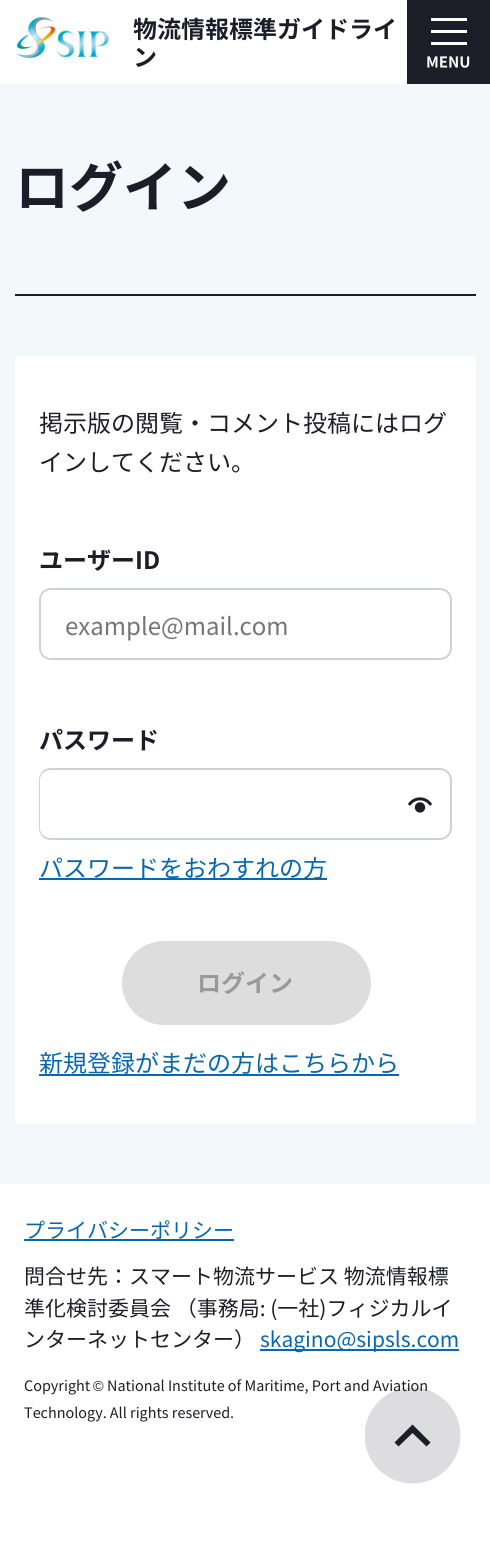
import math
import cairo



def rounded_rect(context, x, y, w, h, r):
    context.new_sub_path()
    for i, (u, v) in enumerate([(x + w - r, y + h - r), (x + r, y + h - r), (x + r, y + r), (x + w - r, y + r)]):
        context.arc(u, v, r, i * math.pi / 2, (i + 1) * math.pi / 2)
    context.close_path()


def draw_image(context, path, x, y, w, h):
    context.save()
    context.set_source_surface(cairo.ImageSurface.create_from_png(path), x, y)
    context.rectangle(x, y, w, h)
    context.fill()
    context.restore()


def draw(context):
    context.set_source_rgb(1, 1, 1)
    context.paint()
    draw_image(context, "images/1.png", 16, 17, 93, 42)
    draw_image(context, "images/2.png", 407, 0, 83, 84)
    context.set_source_rgb(243 / 255, 248 / 255, 250 / 255)
    context.rectangle(0, 84, 490, 1100)
    context.fill()
    context.set_source_rgb(29 / 255, 29 / 255, 41 / 255)
    context.rectangle(15, 294, 461, 2)
    context.fill()
    context.set_source_rgb(1, 1, 1)
    context.rectangle(15, 356, 461, 768)
    context.fill()
    rounded_rect(context, 40, 589, 411, 70, 11)
    context.set_source_rgb(204 / 255, 210 / 255, 217 / 255)
    context.stroke()
    context.set_fill_rule(cairo.FillRule.EVEN_ODD)
    context.new_path()
    context.move_to(51, 768)
    context.line_to(392, 768)
    context.line_to(392, 840)
    context.line_to(51, 840)
    context.curve_to(44, 840, 39, 835, 39, 828)
    context.line_to(39, 780)
    context.curve_to(39, 773, 44, 768, 51, 768)
    context.close_path()
    context.move_to(51, 770)
    context.line_to(392, 770)
    context.line_to(392, 838)
    context.line_to(51, 838)
    context.curve_to(45, 838, 40, 834, 40, 828)
    context.line_to(40, 780)
    context.curve_to(40, 774, 45, 770, 51, 770)
    context.close_path()
    context.fill()
    draw_image(context, "images/3.png", 408, 797, 24, 16)
    context.new_path()
    context.move_to(392, 768)
    context.line_to(440, 768)
    context.curve_to(446, 768, 452, 773, 452, 780)
    context.line_to(452, 828)
    context.curve_to(452, 835, 446, 840, 440, 840)
    context.line_to(392, 840)
    context.close_path()
    context.move_to(392, 770)
    context.line_to(440, 770)
    context.curve_to(445, 770, 450, 774, 450, 780)
    context.line_to(450, 828)
    context.curve_to(450, 834, 445, 838, 440, 838)
    context.line_to(392, 838)
    context.close_path()
    context.fill()
    context.set_source_rgb(9 / 255, 104 / 255, 173 / 255)
    context.rectangle(39, 878, 288, 2)
    context.fill()
    context.set_source_rgb(221 / 255, 221 / 255, 221 / 255)
    rounded_rect(context, 123, 942, 247, 82, 41)
    context.fill_preserve()
    context.stroke()
    context.set_source_rgb(9 / 255, 104 / 255, 173 / 255)
    context.rectangle(39, 1074, 360, 2)
    context.fill()
    context.rectangle(24, 1239, 210, 2)
    context.fill()
    context.rectangle(260, 1349, 199, 2)
    context.fill()
    context.select_font_face("Noto Sans JP", cairo.FontSlant.NORMAL, cairo.FontWeight.BOLD)
    context.set_font_size(24)
    context.set_source_rgb(29 / 255, 29 / 255, 41 / 255)
    context.move_to(133, 38)
    context.show_text("物流情報標準ガイドライ")
    context.move_to(133, 66)
    context.show_text("ン")
    context.set_font_size(54)
    context.move_to(15, 207)
    context.show_text("ログイン")
    context.select_font_face("Noto Sans JP")
    context.set_font_size(24)
    context.move_to(39, 432)
    context.show_text("掲示版の閲覧・コメント投稿にはログ")
    context.move_to(39, 471)
    context.show_text("インしてください。")
    context.select_font_face("Noto Sans JP", cairo.FontSlant.NORMAL, cairo.FontWeight.BOLD)
    context.move_to(39, 569)
    context.show_text("ユーザーID")
    context.select_font_face("Noto Sans JP")
    context.set_source_rgb(117 / 255, 117 / 255, 117 / 255)
    context.move_to(65, 635)
    context.show_text("example@mail.com")
    context.select_font_face("Noto Sans JP", cairo.FontSlant.NORMAL, cairo.FontWeight.BOLD)
    context.set_source_rgb(29 / 255, 29 / 255, 41 / 255)
    context.move_to(39, 749)
    context.show_text("パスワード")
    context.select_font_face("Noto Sans JP")
    context.set_source_rgb(9 / 255, 104 / 255, 173 / 255)
    context.move_to(39, 877)
    context.show_text("パスワードをおわすれの方")
    context.select_font_face("Noto Sans JP", cairo.FontSlant.NORMAL, cairo.FontWeight.BOLD)
    context.set_source_rgb(153 / 255, 153 / 255, 153 / 255)
    context.move_to(197, 992)
    context.show_text("ログイン")
    context.select_font_face("Noto Sans JP")
    context.set_source_rgb(9 / 255, 104 / 255, 173 / 255)
    context.move_to(39, 1072)
    context.show_text("新規登録がまだの方はこちらから")
    context.set_font_size(21)
    context.move_to(24, 1238)
    context.show_text("プライバシーポリシー")
    context.set_source_rgb(29 / 255, 29 / 255, 41 / 255)
    context.move_to(24, 1284)
    context.show_text("問合せ先：スマート物流サービス 物流情報標")
    context.move_to(24, 1316)
    context.show_text("準化検討委員会 （事務局: (一社)フィジカルイ")
    context.move_to(24, 1347)
    context.show_text("ンターネットセンター）")
    context.set_source_rgb(9 / 255, 104 / 255, 173 / 255)
    context.move_to(260, 1347)
    context.show_text("skagino@sipsls.com")
    context.set_font_size(14.4)
    context.set_source_rgb(29 / 255, 29 / 255, 41 / 255)
    context.move_to(24, 1391)
    context.show_text("Copyright")
    context.select_font_face("Liberation Sans")
    context.move_to(93, 1391)
    context.show_text("©")
    context.select_font_face("Noto Sans JP")
    context.move_to(107, 1391)
    context.show_text("National Institute of Maritime, Port and Aviation")
    context.move_to(24, 1418)
    context.show_text("Technology. All rights reserved.")
    context.save()
    context.set_fill_rule(cairo.FillRule.WINDING)
    context.rectangle(365, 1388, 96, 96)
    context.clip()
    context.set_source_rgba(29 / 255, 29 / 255, 41 / 255, 0.15)
    context.arc(412.5, 1435.5, 48, 0, 2 * math.pi)
    context.fill()
    context.restore()
    context.set_fill_rule(cairo.FillRule.WINDING)
    context.new_path()
    context.move_to(426.5, 1446.5)
    context.line_to(412.5, 1433)
    context.line_to(398.5, 1446.5)
    context.line_to(394.5, 1442.5)
    context.line_to(412.5, 1424.5)
    context.line_to(430.5, 1442.5)
    context.close_path()
    context.fill()


surface = cairo.ImageSurface(cairo.Format.RGB24, 490, 1561)
context = cairo.Context(surface)
options = cairo.FontOptions()
options.set_hint_metrics(cairo.HintMetrics.OFF)
options.set_hint_style(cairo.HintStyle.NONE)
context.set_font_options(options)
context.set_miter_limit(4)
draw(context)
surface.write_to_png("out.png")
